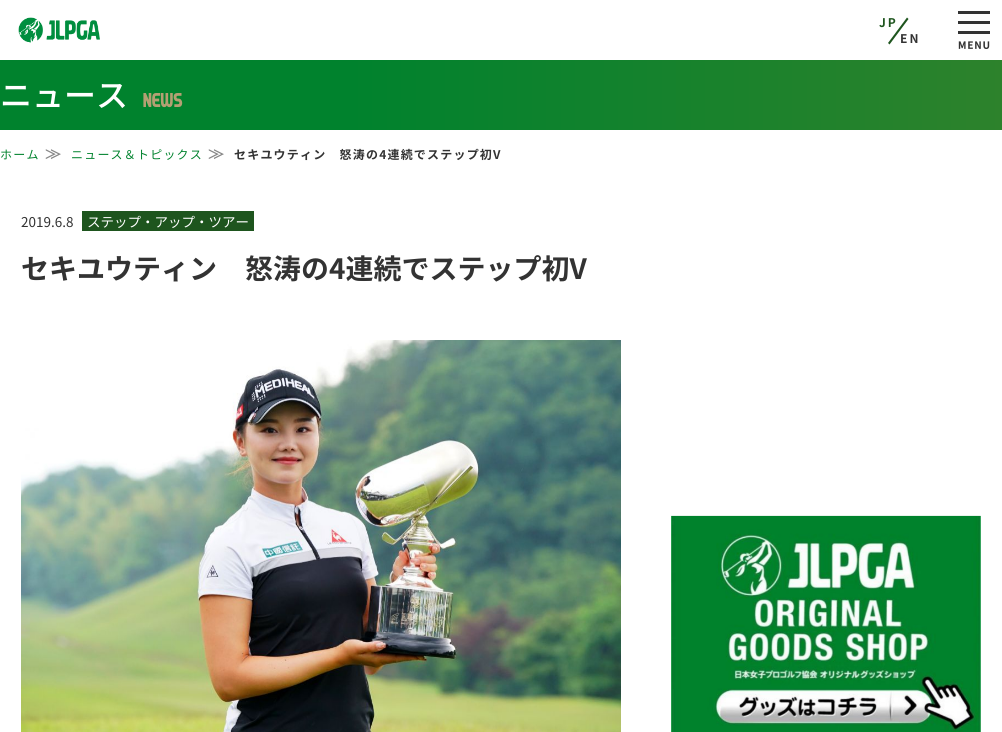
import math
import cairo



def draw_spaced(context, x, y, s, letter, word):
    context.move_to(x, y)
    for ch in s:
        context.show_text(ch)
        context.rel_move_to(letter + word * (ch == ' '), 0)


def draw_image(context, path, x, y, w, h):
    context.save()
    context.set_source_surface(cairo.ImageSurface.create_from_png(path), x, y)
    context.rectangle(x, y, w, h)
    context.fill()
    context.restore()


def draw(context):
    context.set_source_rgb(1, 1, 1)
    context.paint()
    draw_image(context, "images/1.png", 18, 17, 82, 26)
    context.set_source_rgb(30 / 255, 85 / 255, 30 / 255)
    context.new_path()
    context.move_to(888, 43)
    context.line_to(907, 17.5)
    context.line_to(908.5, 19)
    context.line_to(889.5, 44.5)
    context.close_path()
    context.fill()
    draw_image(context, "images/2.png", 958, 11, 32, 38)
    gradient = cairo.LinearGradient(0, 95, 1002, 95)
    gradient.add_color_stop_rgba(0, 0, 130 / 255, 45 / 255, 1)
    gradient.add_color_stop_rgba(0.35, 0, 130 / 255, 45 / 255, 1)
    gradient.add_color_stop_rgba(1, 45 / 255, 130 / 255, 44 / 255, 1)
    context.set_source(gradient)
    context.rectangle(0, 60, 1002, 70)
    context.fill()
    context.set_source_rgb(30 / 255, 85 / 255, 30 / 255)
    context.rectangle(82, 211, 172, 20)
    context.fill()
    draw_image(context, "images/3.png", 21, 340, 600, 392)
    draw_image(context, "images/4.png", 671, 515, 310, 217)
    context.select_font_face("Noto Sans JP", cairo.FontSlant.NORMAL, cairo.FontWeight.BOLD)
    context.set_font_size(12)
    draw_spaced(context, 879, 27, "JP", 2, 0)
    context.set_source_rgb(51 / 255, 51 / 255, 51 / 255)
    draw_spaced(context, 900, 43, "EN", 2, 0)
    context.select_font_face("Noto Sans JP Medium")
    context.set_font_size(32)
    context.set_source_rgb(1, 1, 1)
    context.move_to(0, 107)
    context.show_text("ニュース")
    context.select_font_face("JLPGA")
    context.set_font_size(20)
    context.set_source_rgb(180 / 255, 160 / 255, 115 / 255)
    context.move_to(143, 107)
    context.show_text("NEWS")
    context.select_font_face("Noto Sans JP")
    context.set_font_size(12)
    context.set_source_rgb(0, 130 / 255, 45 / 255)
    draw_spaced(context, 0, 159, "ホーム", 1.2, 0)
    context.select_font_face("WenQuanYi Zen Hei", cairo.FontSlant.NORMAL, cairo.FontWeight.BOLD)
    context.set_font_size(16)
    context.set_source_rgb(135 / 255, 135 / 255, 135 / 255)
    draw_spaced(context, 45, 159, "≫", 1.2, 0)
    context.select_font_face("Noto Sans JP")
    context.set_font_size(12)
    context.set_source_rgb(0, 130 / 255, 45 / 255)
    draw_spaced(context, 71, 159, "ニュース＆トピックス", 1.2, 0)
    context.select_font_face("WenQuanYi Zen Hei", cairo.FontSlant.NORMAL, cairo.FontWeight.BOLD)
    context.set_font_size(16)
    context.set_source_rgb(135 / 255, 135 / 255, 135 / 255)
    draw_spaced(context, 208, 159, "≫", 1.2, 0)
    context.select_font_face("Noto Sans JP", cairo.FontSlant.NORMAL, cairo.FontWeight.BOLD)
    context.set_font_size(12)
    context.set_source_rgb(51 / 255, 51 / 255, 51 / 255)
    draw_spaced(context, 234, 159, "セキユウティン　怒涛の4連続でステップ初V", 1.2, 0)
    context.select_font_face("Noto Sans JP")
    context.set_font_size(13.5)
    context.move_to(21, 227)
    context.show_text("2019.6.8")
    context.set_source_rgb(1, 1, 1)
    context.move_to(87, 227)
    context.show_text("ステップ・アップ・ツアー")
    context.select_font_face("Noto Sans JP", cairo.FontSlant.NORMAL, cairo.FontWeight.BOLD)
    context.set_font_size(28)
    context.set_source_rgb(51 / 255, 51 / 255, 51 / 255)
    context.move_to(21, 279)
    context.show_text("セキユウティン　怒涛の4連続でステップ初V")


surface = cairo.ImageSurface(cairo.Format.RGB24, 1002, 732)
context = cairo.Context(surface)
options = cairo.FontOptions()
options.set_hint_metrics(cairo.HintMetrics.OFF)
options.set_hint_style(cairo.HintStyle.NONE)
context.set_font_options(options)
context.set_miter_limit(4)
draw(context)
surface.write_to_png("out.png")
